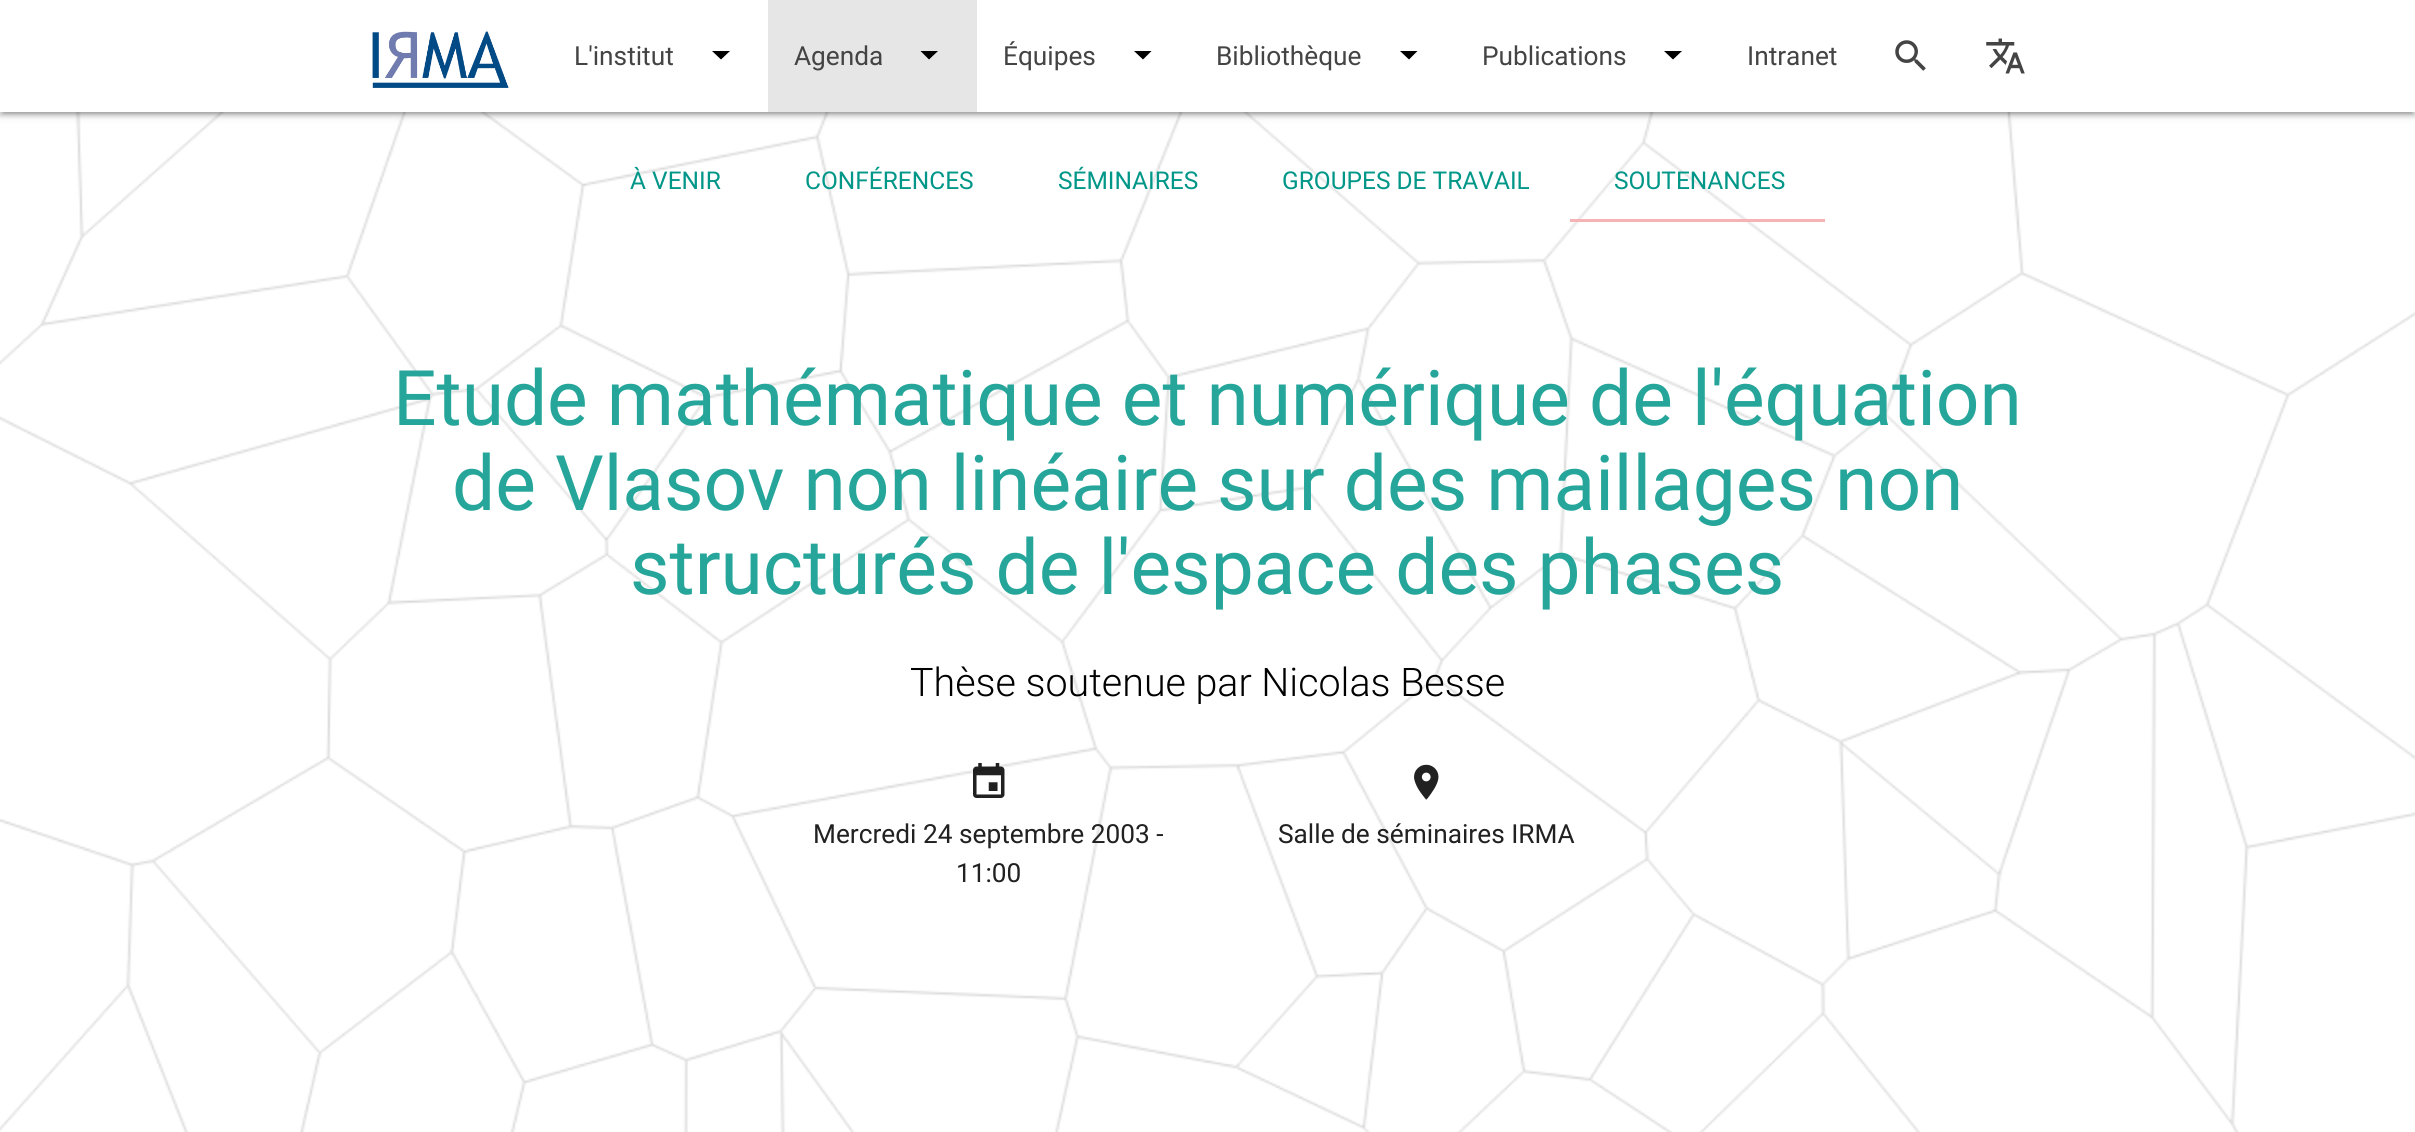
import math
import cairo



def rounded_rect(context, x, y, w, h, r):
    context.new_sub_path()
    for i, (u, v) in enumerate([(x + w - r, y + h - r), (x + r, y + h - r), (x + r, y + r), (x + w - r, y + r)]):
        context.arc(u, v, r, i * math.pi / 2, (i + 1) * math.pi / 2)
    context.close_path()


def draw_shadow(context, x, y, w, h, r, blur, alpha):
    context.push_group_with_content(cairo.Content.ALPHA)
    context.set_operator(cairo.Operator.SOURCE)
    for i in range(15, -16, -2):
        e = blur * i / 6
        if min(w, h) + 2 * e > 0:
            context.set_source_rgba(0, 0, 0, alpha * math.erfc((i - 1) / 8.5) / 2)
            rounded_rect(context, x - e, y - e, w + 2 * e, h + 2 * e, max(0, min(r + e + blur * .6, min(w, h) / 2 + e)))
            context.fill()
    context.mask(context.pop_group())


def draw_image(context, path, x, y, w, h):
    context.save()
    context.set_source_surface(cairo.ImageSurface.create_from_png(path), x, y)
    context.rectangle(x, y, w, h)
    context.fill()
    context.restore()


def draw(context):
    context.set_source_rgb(1, 1, 1)
    context.paint()
    draw_image(context, "images/4.png", 0, 112, 2415, 1020)
    context.set_source_rgb(0, 0, 0)
    draw_shadow(context, 0, 2, 2415, 112, 0, 4.5, 0.2)
    draw_shadow(context, 4, 9, 2408, 105, 0, 1, 0.12)
    draw_shadow(context, 0, 4, 2415, 112, 0, 2, 0.14)
    context.set_source_rgb(1, 1, 1)
    context.rectangle(0, 0, 2415, 112)
    context.fill()
    draw_image(context, "images/1.png", 372, 31, 137, 57)
    context.set_source_rgb(0, 0, 0)
    context.new_path()
    context.move_to(721, 59.5)
    context.line_to(712, 51)
    context.line_to(730, 51)
    context.close_path()
    context.fill()
    context.set_source_rgb(230 / 255, 230 / 255, 230 / 255)
    context.rectangle(768, 0, 209, 112)
    context.fill()
    context.set_source_rgb(0, 0, 0)
    context.new_path()
    context.move_to(929, 59.5)
    context.line_to(920.5, 51)
    context.line_to(938, 51)
    context.close_path()
    context.fill()
    context.new_path()
    context.move_to(1143, 59.5)
    context.line_to(1134, 51)
    context.line_to(1151.5, 51)
    context.close_path()
    context.fill()
    context.new_path()
    context.move_to(1409, 59.5)
    context.line_to(1400, 51)
    context.line_to(1417.5, 51)
    context.close_path()
    context.fill()
    context.new_path()
    context.move_to(1673, 59.5)
    context.line_to(1664, 51)
    context.line_to(1682, 51)
    context.close_path()
    context.fill()
    draw_image(context, "images/2.png", 1895, 40, 31, 31)
    draw_image(context, "images/3.png", 1986, 38, 39, 36)
    context.set_source_rgb(246 / 255, 178 / 255, 181 / 255)
    context.rectangle(1570, 219, 255, 3)
    context.fill()
    draw_image(context, "images/5.png", 973, 763, 32, 35)
    draw_image(context, "images/6.png", 1414, 764, 25, 36)
    context.select_font_face("Roboto")
    context.set_font_size(26.25)
    context.set_source_rgb(68 / 255, 68 / 255, 68 / 255)
    context.move_to(574, 65)
    context.show_text("L'institut")
    context.move_to(794, 65)
    context.show_text("Agenda")
    context.move_to(1003, 65)
    context.show_text("Équipes")
    context.move_to(1216, 65)
    context.show_text("Bibliothèque")
    context.move_to(1482, 65)
    context.show_text("Publications")
    context.move_to(1747, 65)
    context.show_text("Intranet")
    context.set_font_size(24.5)
    context.set_source_rgb(0, 150 / 255, 136 / 255)
    context.move_to(630, 189)
    context.show_text("À VENIR")
    context.move_to(805, 189)
    context.show_text("CONFÉRENCES")
    context.move_to(1058, 189)
    context.show_text("SÉMINAIRES")
    context.move_to(1282, 189)
    context.show_text("GROUPES DE TRAVAIL")
    context.move_to(1614, 189)
    context.show_text("SOUTENANCES")
    context.set_font_size(76.65)
    context.set_source_rgb(38 / 255, 166 / 255, 154 / 255)
    context.move_to(393, 425)
    context.show_text("Etude mathématique et numérique de l'équation")
    context.move_to(452, 510)
    context.show_text("de Vlasov non linéaire sur des maillages non")
    context.move_to(630, 594)
    context.show_text("structurés de l'espace des phases")
    context.select_font_face("Roboto Light")
    context.set_font_size(39.4)
    context.set_source_rgb(0, 0, 0)
    context.move_to(910, 696)
    context.show_text("Thèse soutenue par Nicolas Besse")
    context.select_font_face("Roboto")
    context.set_font_size(26.25)
    context.set_source_rgb(33 / 255, 33 / 255, 33 / 255)
    context.move_to(813, 843)
    context.show_text("Mercredi 24 septembre 2003 -")
    context.move_to(956, 882)
    context.show_text("11:00")
    context.move_to(1278, 843)
    context.show_text("Salle de séminaires IRMA")


surface = cairo.ImageSurface(cairo.Format.RGB24, 2415, 1132)
context = cairo.Context(surface)
options = cairo.FontOptions()
options.set_hint_metrics(cairo.HintMetrics.OFF)
options.set_hint_style(cairo.HintStyle.NONE)
context.set_font_options(options)
context.set_miter_limit(4)
draw(context)
surface.write_to_png("out.png")
